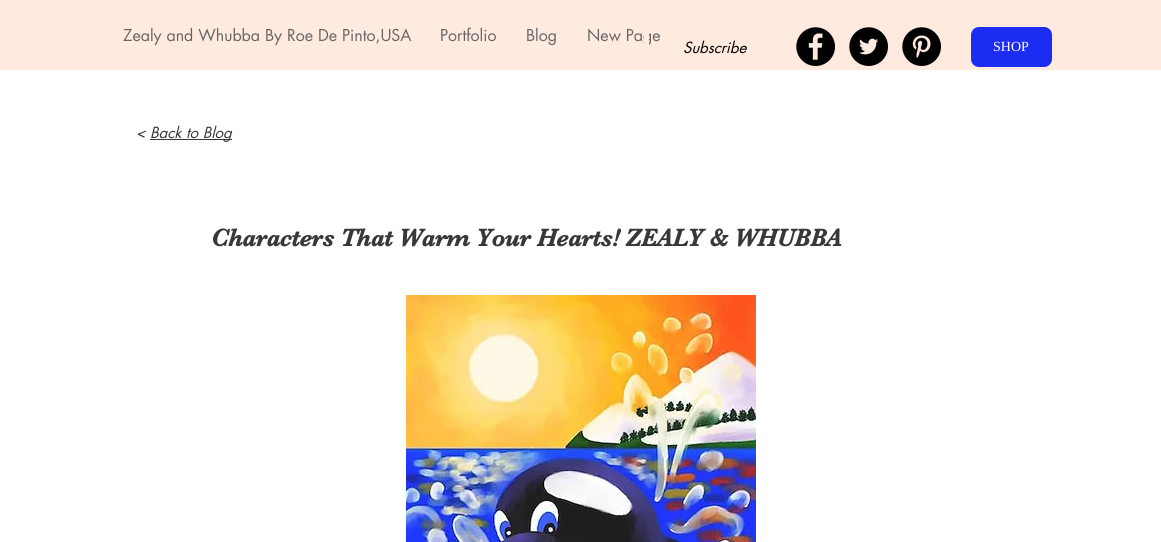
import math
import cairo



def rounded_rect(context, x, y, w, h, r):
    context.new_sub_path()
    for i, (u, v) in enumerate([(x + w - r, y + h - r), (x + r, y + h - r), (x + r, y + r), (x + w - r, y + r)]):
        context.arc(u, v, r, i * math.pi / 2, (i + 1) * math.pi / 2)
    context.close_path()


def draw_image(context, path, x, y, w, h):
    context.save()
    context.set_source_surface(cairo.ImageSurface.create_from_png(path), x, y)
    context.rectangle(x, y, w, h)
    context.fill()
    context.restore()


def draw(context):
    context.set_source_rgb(1, 1, 1)
    context.paint()
    context.set_source_rgb(1, 234 / 255, 224 / 255)
    context.rectangle(0, 0, 1161, 70)
    context.fill()
    draw_image(context, "images/1.png", 796, 27, 39, 39)
    draw_image(context, "images/2.png", 849, 27, 39, 39)
    draw_image(context, "images/3.png", 902, 27, 39, 39)
    context.set_source_rgb(29 / 255, 44 / 255, 243 / 255)
    rounded_rect(context, 971, 27, 81, 40, 8)
    context.fill()
    context.set_source_rgb(56 / 255, 56 / 255, 56 / 255)
    context.rectangle(150, 139, 82, 1)
    context.fill()
    draw_image(context, "images/4.png", 406, 295, 350, 247)
    context.select_font_face("futura")
    context.set_font_size(16)
    context.set_source_rgb(102 / 255, 102 / 255, 102 / 255)
    context.move_to(123, 41)
    context.show_text("Zealy and Whubba By Roe De Pinto,USA")
    context.move_to(440, 41)
    context.show_text("Portfolio")
    context.move_to(526, 41)
    context.show_text("Blog")
    context.move_to(587, 41)
    context.show_text("New Page")
    context.rectangle(646.5, 29.5, 137, 35)
    context.set_source_rgb(1, 234 / 255, 224 / 255)
    context.set_line_width(5)
    context.stroke()
    context.select_font_face("futura", cairo.FontSlant.ITALIC)
    context.set_font_size(15)
    context.set_source_rgb(0, 0, 0)
    context.move_to(683, 53)
    context.show_text("Subscribe")
    context.select_font_face("Liberation Serif")
    context.set_font_size(14)
    context.set_source_rgb(1, 1, 1)
    context.move_to(993, 51)
    context.show_text("SHOP")
    context.select_font_face("futura", cairo.FontSlant.ITALIC)
    context.set_font_size(15)
    context.set_source_rgb(56 / 255, 56 / 255, 56 / 255)
    context.move_to(136, 138)
    context.show_text("<")
    context.move_to(150, 138)
    context.show_text("Back to Blog")
    context.select_font_face("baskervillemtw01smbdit", cairo.FontSlant.NORMAL, cairo.FontWeight.BOLD)
    context.set_font_size(25)
    context.move_to(211, 246)
    context.show_text("Characters That Warm Your Hearts! ZEALY & WHUBBA")


surface = cairo.ImageSurface(cairo.Format.RGB24, 1161, 542)
context = cairo.Context(surface)
options = cairo.FontOptions()
options.set_hint_metrics(cairo.HintMetrics.OFF)
options.set_hint_style(cairo.HintStyle.NONE)
context.set_font_options(options)
context.set_miter_limit(4)
draw(context)
surface.write_to_png("out.png")
